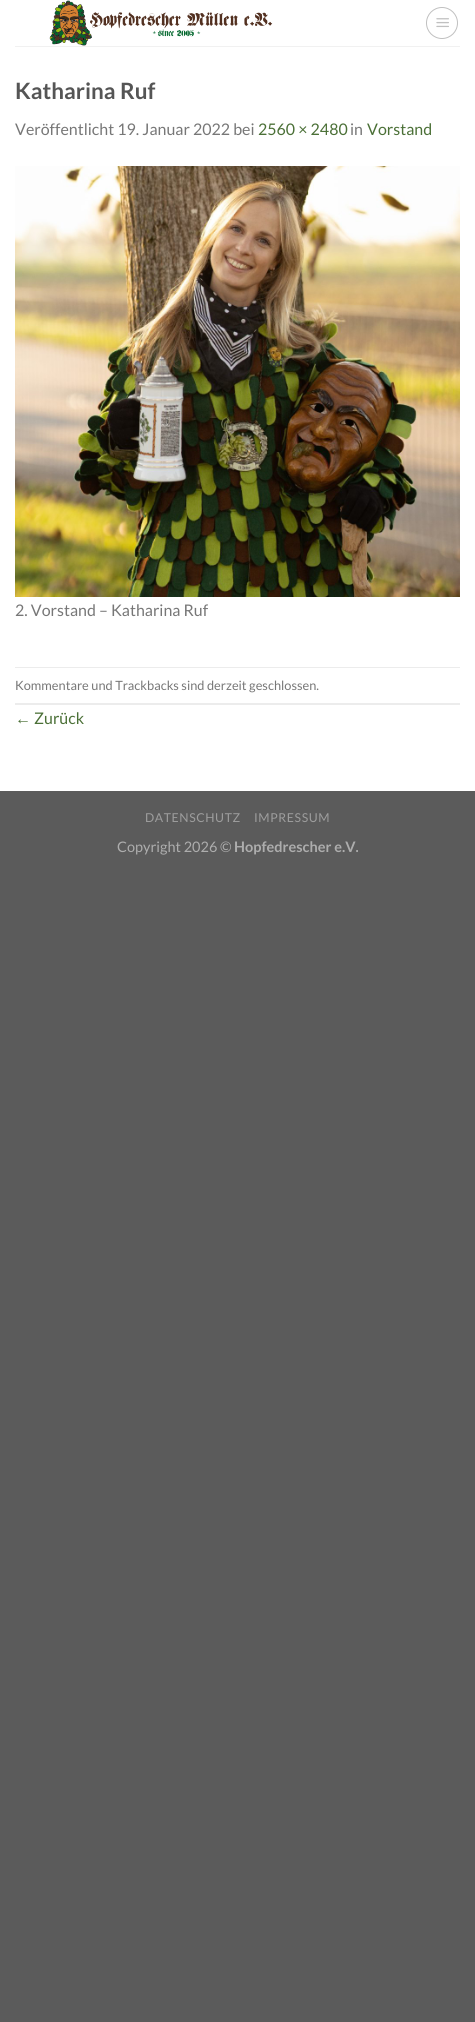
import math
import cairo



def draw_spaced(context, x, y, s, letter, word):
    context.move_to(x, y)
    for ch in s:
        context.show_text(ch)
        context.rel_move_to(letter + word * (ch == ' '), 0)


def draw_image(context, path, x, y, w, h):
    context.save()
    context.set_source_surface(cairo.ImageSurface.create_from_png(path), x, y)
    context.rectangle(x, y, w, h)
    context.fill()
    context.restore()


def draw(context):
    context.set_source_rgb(91 / 255, 91 / 255, 91 / 255)
    context.paint()
    context.set_source_rgb(1, 1, 1)
    context.rectangle(0, 0, 475, 791)
    context.fill()
    draw_image(context, "images/1.png", 49, 0, 224, 46)
    context.arc(442, 23, 15.5, 0, 2 * math.pi)
    context.set_source_rgb(192 / 255, 192 / 255, 192 / 255)
    context.set_line_width(1)
    context.stroke()
    draw_image(context, "images/2.png", 436, 18, 13, 10)
    context.set_source_rgb(241 / 255, 241 / 255, 241 / 255)
    context.rectangle(15, 46, 445, 1)
    context.fill()
    draw_image(context, "images/3.png", 15, 166, 445, 431)
    context.set_source_rgb(236 / 255, 236 / 255, 236 / 255)
    context.rectangle(15, 667, 445, 1)
    context.fill()
    context.rectangle(15, 703, 445, 2)
    context.fill()
    context.select_font_face("Lato", cairo.FontSlant.NORMAL, cairo.FontWeight.BOLD)
    context.set_font_size(22.5)
    context.set_source_rgb(85 / 255, 85 / 255, 85 / 255)
    context.move_to(15, 99)
    context.show_text("Katharina Ruf")
    context.select_font_face("Lato")
    context.set_font_size(16)
    context.set_source_rgb(119 / 255, 119 / 255, 119 / 255)
    context.move_to(15, 135)
    context.show_text("Veröffentlicht 19. Januar 2022 bei")
    context.set_source_rgb(75 / 255, 112 / 255, 55 / 255)
    context.move_to(258, 135)
    context.show_text("2560 × 2480")
    context.set_source_rgb(119 / 255, 119 / 255, 119 / 255)
    context.move_to(350, 135)
    context.show_text("in")
    context.set_source_rgb(75 / 255, 112 / 255, 55 / 255)
    context.move_to(367, 135)
    context.show_text("Vorstand")
    context.set_source_rgb(119 / 255, 119 / 255, 119 / 255)
    context.move_to(15, 616)
    context.show_text("2. Vorstand – Katharina Ruf")
    context.set_font_size(12.8)
    context.move_to(15, 690)
    context.show_text("Kommentare und Trackbacks sind derzeit geschlossen.")
    context.select_font_face("Liberation Sans")
    context.set_font_size(16)
    context.set_source_rgb(75 / 255, 112 / 255, 55 / 255)
    context.move_to(15, 724)
    context.show_text("←")
    context.select_font_face("Lato")
    context.move_to(34, 724)
    context.show_text("Zurück")
    context.set_font_size(12.25)
    context.set_source_rgb(157 / 255, 157 / 255, 157 / 255)
    draw_spaced(context, 145, 822, "DATENSCHUTZ", 0.6, 0)
    draw_spaced(context, 254, 822, "IMPRESSUM", 0.6, 0)
    context.set_font_size(14.5)
    context.set_source_rgb(173 / 255, 173 / 255, 173 / 255)
    context.move_to(117, 852)
    context.show_text("Copyright 2026 ©")
    context.select_font_face("Lato", cairo.FontSlant.NORMAL, cairo.FontWeight.BOLD)
    context.move_to(234, 852)
    context.show_text("Hopfedrescher e.V.")


surface = cairo.ImageSurface(cairo.Format.RGB24, 475, 2022)
context = cairo.Context(surface)
options = cairo.FontOptions()
options.set_hint_metrics(cairo.HintMetrics.OFF)
options.set_hint_style(cairo.HintStyle.NONE)
context.set_font_options(options)
context.set_miter_limit(4)
draw(context)
surface.write_to_png("out.png")
